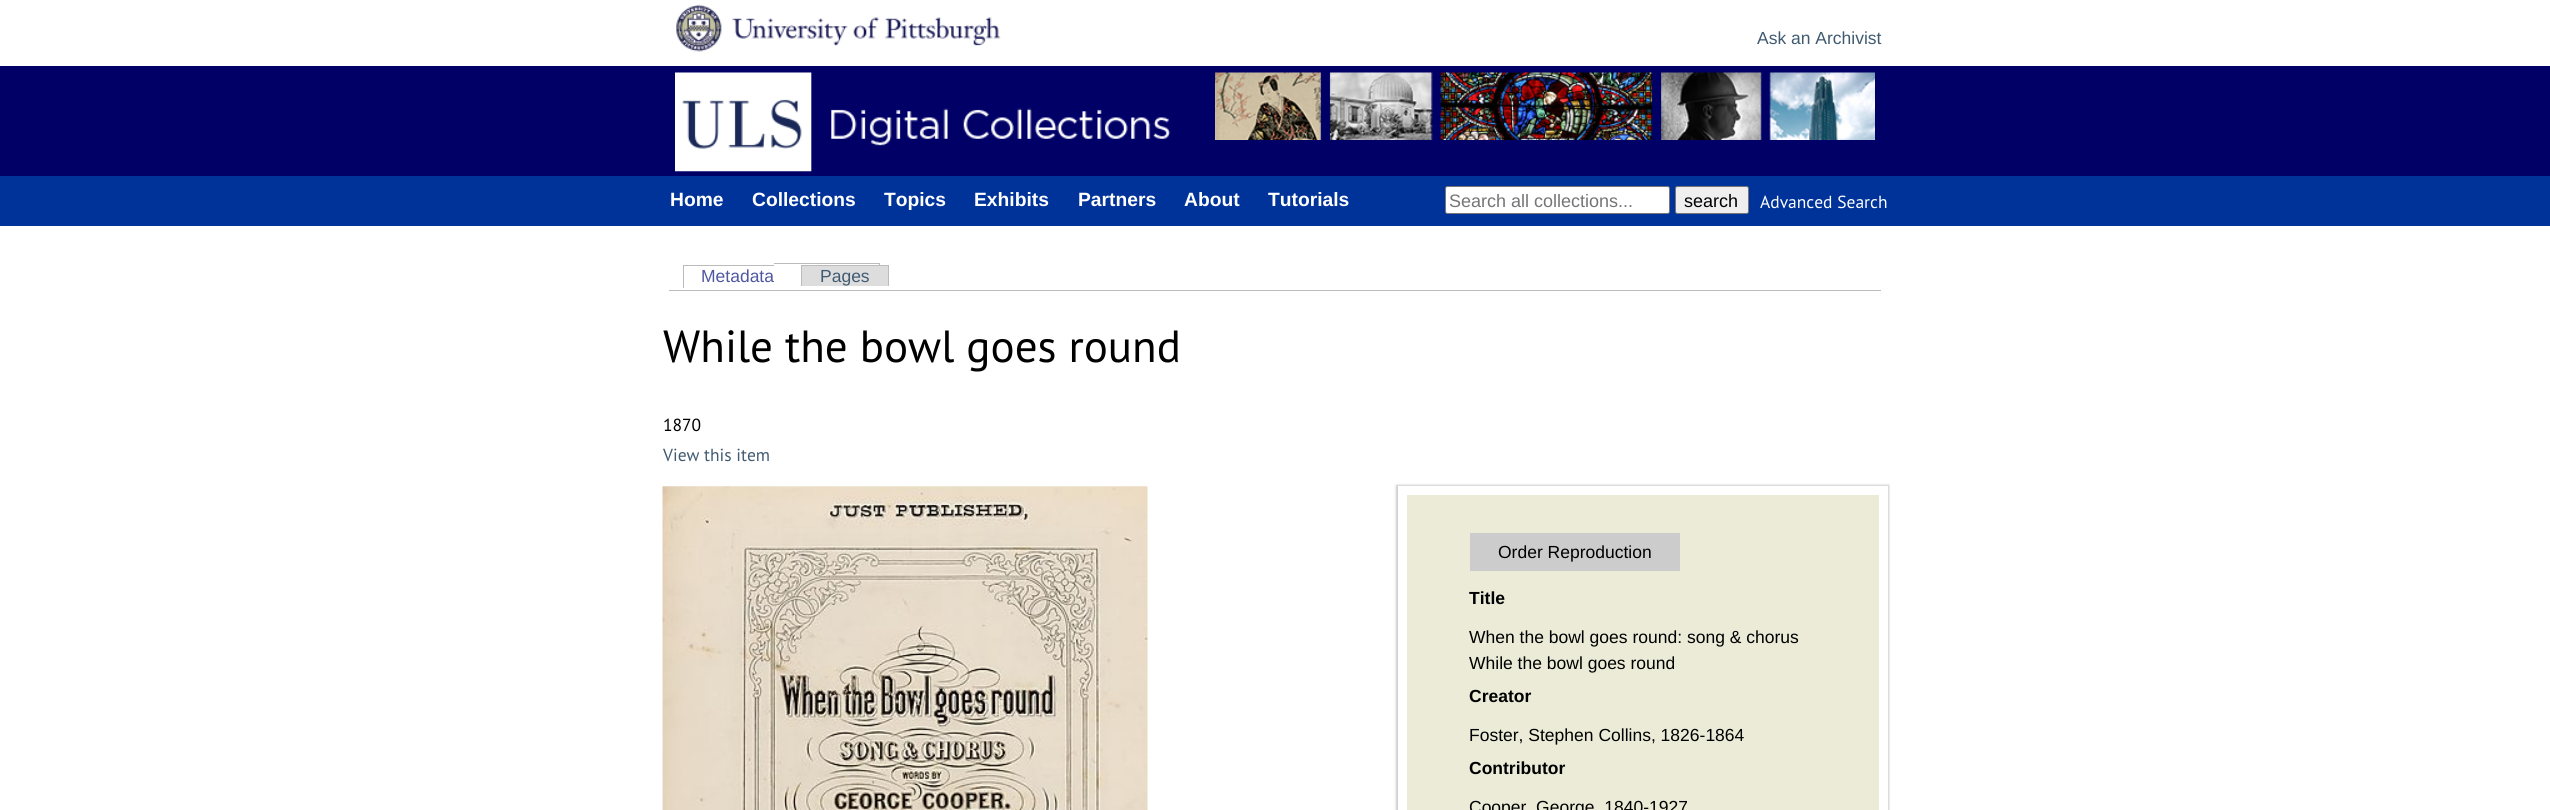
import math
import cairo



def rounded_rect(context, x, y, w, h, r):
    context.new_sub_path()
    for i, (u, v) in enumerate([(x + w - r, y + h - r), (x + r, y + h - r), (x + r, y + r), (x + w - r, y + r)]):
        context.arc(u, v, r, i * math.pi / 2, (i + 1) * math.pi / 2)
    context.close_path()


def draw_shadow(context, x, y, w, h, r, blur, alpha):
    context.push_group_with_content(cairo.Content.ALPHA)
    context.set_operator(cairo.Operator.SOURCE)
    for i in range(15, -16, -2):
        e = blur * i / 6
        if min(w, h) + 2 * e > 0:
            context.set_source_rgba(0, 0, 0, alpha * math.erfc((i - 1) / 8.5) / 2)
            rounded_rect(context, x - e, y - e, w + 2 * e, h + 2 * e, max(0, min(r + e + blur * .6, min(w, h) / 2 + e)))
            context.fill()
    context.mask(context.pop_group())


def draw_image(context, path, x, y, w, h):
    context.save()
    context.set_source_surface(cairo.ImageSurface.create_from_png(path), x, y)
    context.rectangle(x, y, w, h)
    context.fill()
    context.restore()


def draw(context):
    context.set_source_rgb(1, 1, 1)
    context.paint()
    draw_image(context, "images/1.png", 676, 4, 325, 48)
    context.set_source_rgb(0, 0, 102 / 255)
    context.rectangle(0, 66, 2550, 110)
    context.fill()
    draw_image(context, "images/2.png", 675, 72, 496, 100)
    draw_image(context, "images/3.png", 1215, 72, 660, 68)
    context.set_source_rgb(0, 51 / 255, 153 / 255)
    context.rectangle(0, 176, 2550, 50)
    context.fill()
    context.set_source_rgb(1, 1, 1)
    rounded_rect(context, 1445.5, 186.5, 224, 27, 2)
    context.fill_preserve()
    context.set_source_rgb(118 / 255, 118 / 255, 118 / 255)
    context.set_line_width(1)
    context.stroke()
    context.set_source_rgb(239 / 255, 239 / 255, 239 / 255)
    rounded_rect(context, 1675.5, 186.5, 73, 27, 2)
    context.fill_preserve()
    context.set_source_rgb(118 / 255, 118 / 255, 118 / 255)
    context.stroke()
    context.set_source_rgb(187 / 255, 187 / 255, 187 / 255)
    context.rectangle(669, 290, 1212, 1)
    context.fill()
    context.rectangle(683, 265, 91, 1)
    context.fill()
    context.rectangle(683, 265, 1, 23)
    context.fill()
    context.rectangle(774, 263, 106, 1)
    context.fill()
    context.rectangle(879, 263, 1, 4)
    context.fill()
    context.set_source_rgb(221 / 255, 221 / 255, 221 / 255)
    context.rectangle(802, 266, 86, 20)
    context.fill()
    context.set_source_rgb(187 / 255, 187 / 255, 187 / 255)
    context.rectangle(801, 265, 88, 1)
    context.fill()
    context.rectangle(888, 265, 1, 21)
    context.fill()
    context.rectangle(801, 265, 1, 21)
    context.fill()
    draw_image(context, "images/4.png", 662, 486, 486, 324)
    context.set_source_rgb(204 / 255, 204 / 255, 204 / 255)
    draw_shadow(context, 1396, 485, 493, 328, 0, 1, 1)
    context.set_source_rgb(235 / 255, 235 / 255, 216 / 255)
    context.rectangle(1402.5, 490.5, 481, 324)
    context.fill_preserve()
    context.set_source_rgb(1, 1, 1)
    context.set_line_width(9)
    context.stroke()
    context.set_source_rgb(204 / 255, 204 / 255, 204 / 255)
    context.rectangle(1470, 533, 210, 38)
    context.fill()
    context.select_font_face("Liberation Sans")
    context.set_font_size(17.5)
    context.set_source_rgb(64 / 255, 90 / 255, 113 / 255)
    context.move_to(1757, 44)
    context.show_text("Ask an Archivist")
    context.select_font_face("Liberation Sans", cairo.FontSlant.NORMAL, cairo.FontWeight.BOLD)
    context.set_font_size(19.25)
    context.set_source_rgb(1, 1, 1)
    context.move_to(670, 206)
    context.show_text("Home")
    context.move_to(752, 206)
    context.show_text("Collections")
    context.move_to(884, 206)
    context.show_text("Topics")
    context.move_to(974, 206)
    context.show_text("Exhibits")
    context.move_to(1078, 206)
    context.show_text("Partners")
    context.move_to(1184, 206)
    context.show_text("About")
    context.move_to(1268, 206)
    context.show_text("Tutorials")
    context.select_font_face("Liberation Sans")
    context.set_font_size(18)
    context.set_source_rgb(117 / 255, 117 / 255, 117 / 255)
    context.move_to(1449, 207)
    context.show_text("Search all collections...")
    context.set_source_rgb(0, 0, 0)
    context.move_to(1684, 207)
    context.show_text("search")
    context.select_font_face("PT Sans")
    context.set_font_size(17.5)
    context.set_source_rgb(1, 1, 1)
    context.move_to(1760, 208)
    context.show_text("Advanced Search")
    context.select_font_face("Liberation Sans")
    context.set_source_rgb(80 / 255, 87 / 255, 161 / 255)
    context.move_to(701, 282)
    context.show_text("Metadata")
    context.set_source_rgb(64 / 255, 90 / 255, 113 / 255)
    context.move_to(820, 282)
    context.show_text("Pages")
    context.select_font_face("PT Sans")
    context.set_font_size(45)
    context.set_source_rgb(0, 0, 0)
    context.move_to(663, 362)
    context.show_text("While the bowl goes round")
    context.set_font_size(17.5)
    context.move_to(663, 431)
    context.show_text("1870")
    context.set_source_rgb(64 / 255, 90 / 255, 113 / 255)
    context.move_to(663, 461)
    context.show_text("View this item")
    context.select_font_face("Liberation Sans")
    context.set_source_rgb(0, 0, 0)
    context.move_to(1498, 558)
    context.show_text("Order Reproduction")
    context.select_font_face("Liberation Sans", cairo.FontSlant.NORMAL, cairo.FontWeight.BOLD)
    context.move_to(1469, 604)
    context.show_text("Title")
    context.select_font_face("Liberation Sans")
    context.move_to(1469, 643)
    context.show_text("When the bowl goes round: song & chorus")
    context.move_to(1469, 669)
    context.show_text("While the bowl goes round")
    context.select_font_face("Liberation Sans", cairo.FontSlant.NORMAL, cairo.FontWeight.BOLD)
    context.move_to(1469, 702)
    context.show_text("Creator")
    context.select_font_face("Liberation Sans")
    context.move_to(1469, 741)
    context.show_text("Foster, Stephen Collins, 1826-1864")
    context.select_font_face("Liberation Sans", cairo.FontSlant.NORMAL, cairo.FontWeight.BOLD)
    context.move_to(1469, 774)
    context.show_text("Contributor")
    context.select_font_face("Liberation Sans")
    context.move_to(1469, 813)
    context.show_text("Cooper, George, 1840-1927")


surface = cairo.ImageSurface(cairo.Format.RGB24, 2550, 810)
context = cairo.Context(surface)
options = cairo.FontOptions()
options.set_hint_metrics(cairo.HintMetrics.OFF)
options.set_hint_style(cairo.HintStyle.NONE)
context.set_font_options(options)
context.set_miter_limit(4)
draw(context)
surface.write_to_png("out.png")
